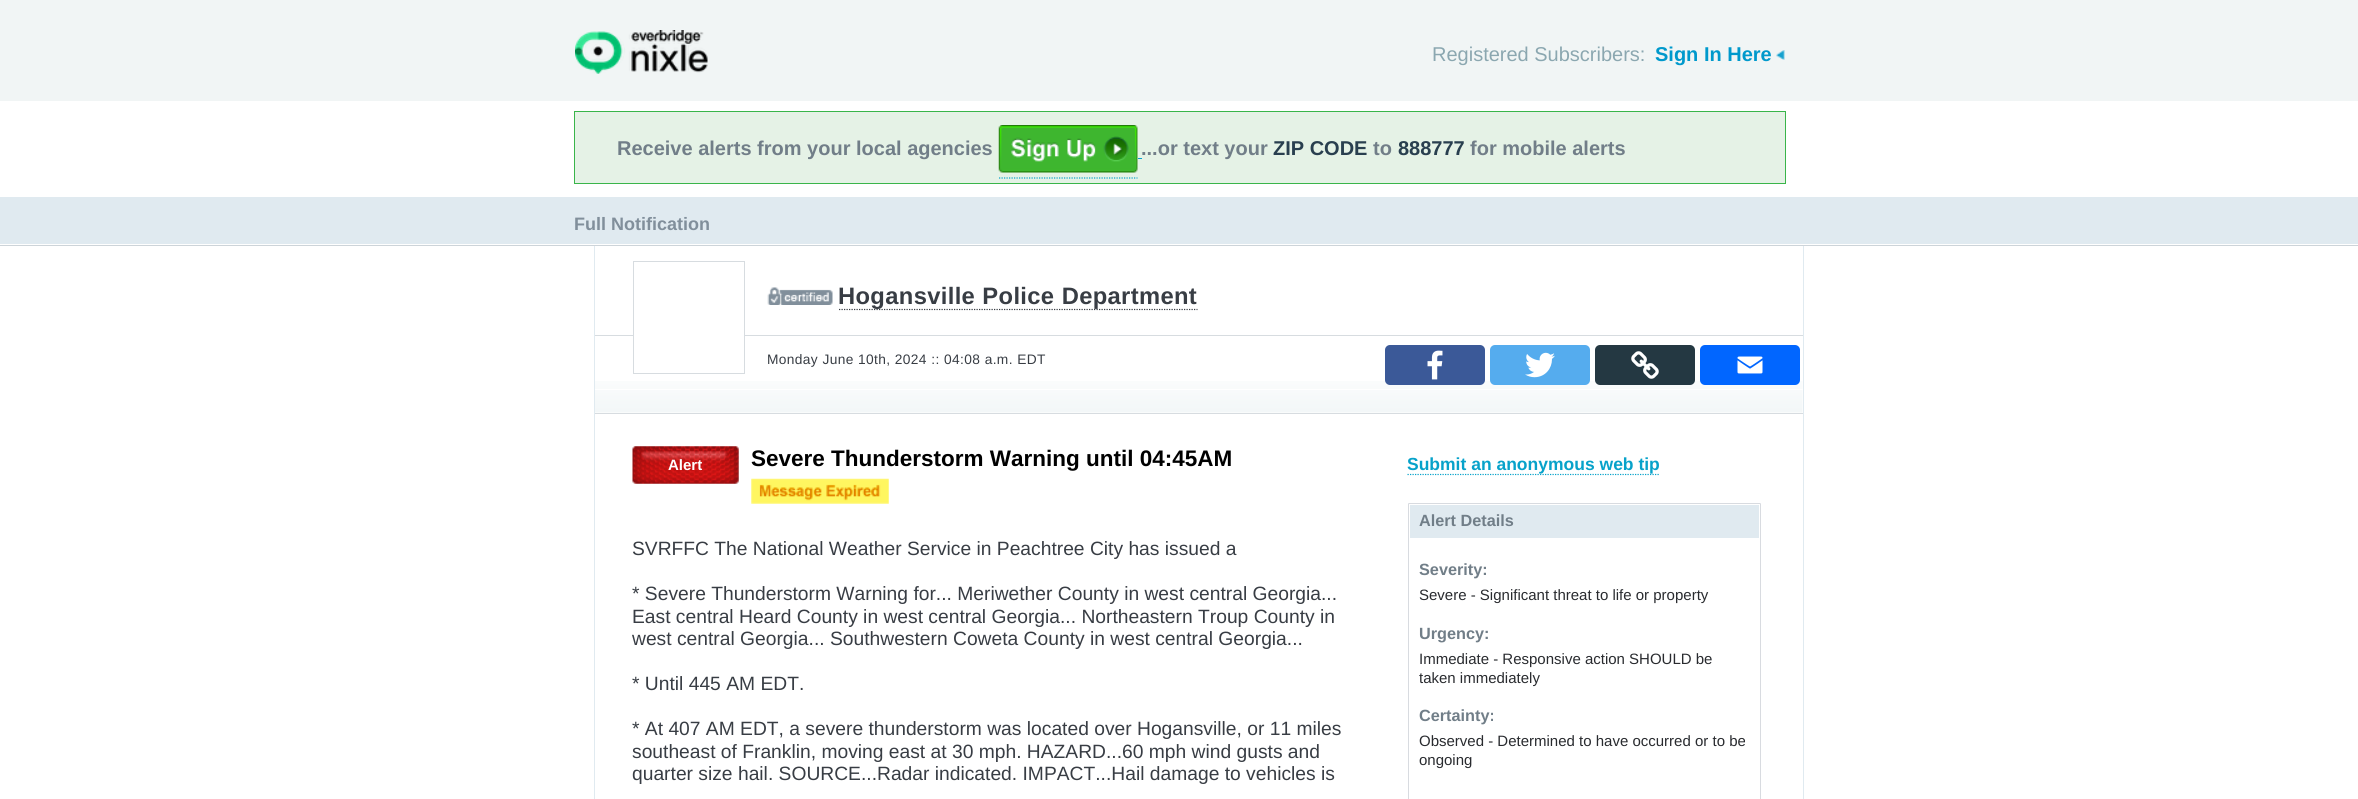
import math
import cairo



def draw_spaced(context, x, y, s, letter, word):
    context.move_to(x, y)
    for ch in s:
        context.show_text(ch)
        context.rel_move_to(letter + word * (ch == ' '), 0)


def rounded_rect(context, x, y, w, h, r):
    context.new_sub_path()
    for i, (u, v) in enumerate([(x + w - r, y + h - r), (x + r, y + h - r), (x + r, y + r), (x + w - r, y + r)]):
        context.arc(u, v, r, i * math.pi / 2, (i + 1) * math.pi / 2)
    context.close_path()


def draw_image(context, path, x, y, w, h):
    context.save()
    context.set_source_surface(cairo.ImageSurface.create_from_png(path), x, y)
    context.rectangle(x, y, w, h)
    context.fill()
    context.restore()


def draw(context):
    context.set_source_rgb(241 / 255, 245 / 255, 245 / 255)
    context.paint()
    draw_image(context, "images/1.png", 575, 30, 133, 44)
    draw_image(context, "images/2.png", 1776, 50, 9, 10)
    context.set_source_rgb(1, 1, 1)
    context.rectangle(0, 101, 2358, 96)
    context.fill()
    context.set_source_rgb(229 / 255, 242 / 255, 230 / 255)
    context.rectangle(574.5, 111.5, 1211, 72)
    context.fill_preserve()
    context.set_source_rgb(57 / 255, 181 / 255, 74 / 255)
    context.set_line_width(1)
    context.stroke()
    context.new_path()
    context.move_to(999, 178)
    context.line_to(1137.5, 178)
    context.set_source_rgb(7 / 255, 162 / 255, 202 / 255)
    context.set_line_width(1.2)
    context.set_dash([1.25, 1.25])
    context.stroke()
    context.rectangle(1138, 158, 4, 1)
    context.fill()
    draw_image(context, "images/3.png", 998, 125, 140, 48)
    context.set_source_rgb(224 / 255, 234 / 255, 240 / 255)
    context.rectangle(0, 197, 2358, 47)
    context.fill()
    context.set_source_rgb(1, 1, 1)
    context.rectangle(0, 244, 2358, 1)
    context.fill()
    context.rectangle(0, 246, 2358, 553)
    context.fill()
    context.set_source_rgb(205 / 255, 212 / 255, 217 / 255)
    context.rectangle(0, 245, 2358, 1)
    context.fill()
    context.set_source_rgb(224 / 255, 234 / 255, 240 / 255)
    context.rectangle(1803, 246, 1, 553)
    context.fill()
    context.rectangle(594, 246, 1, 553)
    context.fill()
    draw_image(context, "images/4.png", 595, 381, 1208, 32)
    context.set_source_rgb(215 / 255, 220 / 255, 224 / 255)
    context.rectangle(595, 413, 1208, 1)
    context.fill()
    context.rectangle(595, 335, 1208, 1)
    context.fill()
    context.set_source_rgb(1, 1, 1)
    context.rectangle(634, 335, 110, 1)
    context.fill()
    context.rectangle(633.5, 261.5, 111, 112)
    context.set_source_rgb(215 / 255, 220 / 255, 224 / 255)
    context.set_line_width(1)
    context.set_dash([])
    context.stroke()
    draw_image(context, "images/5.png", 767, 287, 66, 18)
    context.new_path()
    context.move_to(839, 309.5)
    context.line_to(1197.5, 309.5)
    context.set_source_rgb(56 / 255, 61 / 255, 68 / 255)
    context.set_line_width(1.2)
    context.set_dash([1.25, 1.25])
    context.stroke()
    context.set_source_rgb(1, 1, 1)
    context.rectangle(595, 389, 1208, 1)
    context.fill()
    context.set_source_rgb(59 / 255, 89 / 255, 152 / 255)
    rounded_rect(context, 1385, 345, 100, 40, 5)
    context.fill()
    draw_image(context, "images/6.png", 1427, 350, 16, 30)
    context.set_source_rgb(85 / 255, 172 / 255, 238 / 255)
    rounded_rect(context, 1490, 345, 100, 40, 5)
    context.fill()
    draw_image(context, "images/7.png", 1525, 352, 30, 26)
    context.set_source_rgb(36 / 255, 56 / 255, 66 / 255)
    rounded_rect(context, 1595, 345, 100, 40, 5)
    context.fill()
    draw_image(context, "images/8.png", 1631, 351, 28, 28)
    context.set_source_rgb(1 / 255, 102 / 255, 1)
    rounded_rect(context, 1700, 345, 100, 40, 5)
    context.fill()
    draw_image(context, "images/9.png", 1737, 356, 26, 18)
    draw_image(context, "images/10.png", 632, 446, 107, 38)
    draw_image(context, "images/11.png", 751, 478, 138, 26)
    context.new_path()
    context.move_to(1407.5, 474.5)
    context.line_to(1660, 474.5)
    context.set_source_rgb(7 / 255, 162 / 255, 202 / 255)
    context.stroke()
    rounded_rect(context, 1408.5, 503.5, 352, 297, 0.5)
    context.set_source_rgb(216 / 255, 219 / 255, 224 / 255)
    context.set_line_width(1)
    context.set_dash([])
    context.stroke()
    context.set_source_rgb(224 / 255, 234 / 255, 240 / 255)
    context.rectangle(1410, 505, 349, 33)
    context.fill()
    context.select_font_face("Liberation Sans")
    context.set_font_size(20)
    context.set_source_rgb(139 / 255, 167 / 255, 176 / 255)
    context.move_to(1432, 61)
    context.show_text("Registered Subscribers:")
    context.select_font_face("Liberation Sans", cairo.FontSlant.NORMAL, cairo.FontWeight.BOLD)
    context.set_source_rgb(0, 153 / 255, 204 / 255)
    context.move_to(1655, 61)
    context.show_text("Sign In Here")
    context.set_source_rgb(113 / 255, 126 / 255, 136 / 255)
    context.move_to(617, 155)
    context.show_text("Receive alerts from your local agencies")
    context.move_to(1141, 155)
    context.show_text("...or text your")
    context.set_source_rgb(41 / 255, 63 / 255, 79 / 255)
    context.move_to(1273, 155)
    context.show_text("ZIP CODE")
    context.set_source_rgb(113 / 255, 126 / 255, 136 / 255)
    context.move_to(1373, 155)
    context.show_text("to")
    context.set_source_rgb(41 / 255, 63 / 255, 79 / 255)
    context.move_to(1398, 155)
    context.show_text("888777")
    context.set_source_rgb(113 / 255, 126 / 255, 136 / 255)
    context.move_to(1470, 155)
    context.show_text("for mobile alerts")
    context.set_font_size(18)
    context.set_source_rgb(129 / 255, 143 / 255, 155 / 255)
    context.move_to(574, 230)
    context.show_text("Full Notification")
    context.set_font_size(23.75)
    context.set_source_rgb(56 / 255, 61 / 255, 68 / 255)
    draw_spaced(context, 838, 304, "Hogansville Police Department", 0.35, 0.25)
    context.select_font_face("Liberation Sans")
    context.set_font_size(13.75)
    draw_spaced(context, 767, 364, "Monday June 10th, 2024 :: 04:08 a.m. EDT", 0.35, 0.25)
    context.select_font_face("Liberation Sans", cairo.FontSlant.NORMAL, cairo.FontWeight.BOLD)
    context.set_font_size(15)
    context.set_source_rgb(1, 1, 1)
    context.move_to(668, 470)
    context.show_text("Alert")
    context.set_font_size(22.5)
    context.set_source_rgb(0, 0, 0)
    context.move_to(751, 466)
    context.show_text("Severe Thunderstorm Warning until 04:45AM")
    context.select_font_face("Liberation Sans")
    context.set_font_size(19.25)
    context.set_source_rgb(56 / 255, 61 / 255, 68 / 255)
    context.move_to(632, 555)
    context.show_text("SVRFFC The National Weather Service in Peachtree City has issued a")
    context.move_to(632, 600)
    context.show_text("* Severe Thunderstorm Warning for... Meriwether County in west central Georgia...")
    context.move_to(632, 623)
    context.show_text("East central Heard County in west central Georgia... Northeastern Troup County in")
    context.move_to(632, 645)
    context.show_text("west central Georgia... Southwestern Coweta County in west central Georgia...")
    context.move_to(632, 690)
    context.show_text("* Until 445 AM EDT.")
    context.move_to(632, 735)
    context.show_text("* At 407 AM EDT, a severe thunderstorm was located over Hogansville, or 11 miles")
    context.move_to(632, 758)
    context.show_text("southeast of Franklin, moving east at 30 mph. HAZARD...60 mph wind gusts and")
    context.move_to(632, 780)
    context.show_text("quarter size hail. SOURCE...Radar indicated. IMPACT...Hail damage to vehicles is")
    context.select_font_face("Liberation Sans", cairo.FontSlant.NORMAL, cairo.FontWeight.BOLD)
    context.set_font_size(17.5)
    context.set_source_rgb(7 / 255, 162 / 255, 202 / 255)
    context.move_to(1407, 470)
    context.show_text("Submit an anonymous web tip")
    context.set_font_size(16.25)
    context.set_source_rgb(113 / 255, 126 / 255, 136 / 255)
    context.move_to(1419, 526)
    context.show_text("Alert Details")
    context.move_to(1419, 575)
    context.show_text("Severity:")
    context.select_font_face("Liberation Sans")
    context.set_font_size(15)
    context.set_source_rgb(41 / 255, 43 / 255, 47 / 255)
    context.move_to(1419, 600)
    context.show_text("Severe - Significant threat to life or property")
    context.select_font_face("Liberation Sans", cairo.FontSlant.NORMAL, cairo.FontWeight.BOLD)
    context.set_font_size(16.25)
    context.set_source_rgb(113 / 255, 126 / 255, 136 / 255)
    context.move_to(1419, 639)
    context.show_text("Urgency:")
    context.select_font_face("Liberation Sans")
    context.set_font_size(15)
    context.set_source_rgb(41 / 255, 43 / 255, 47 / 255)
    context.move_to(1419, 664)
    context.show_text("Immediate - Responsive action SHOULD be")
    context.move_to(1419, 683)
    context.show_text("taken immediately")
    context.select_font_face("Liberation Sans", cairo.FontSlant.NORMAL, cairo.FontWeight.BOLD)
    context.set_font_size(16.25)
    context.set_source_rgb(113 / 255, 126 / 255, 136 / 255)
    context.move_to(1419, 721)
    context.show_text("Certainty:")
    context.select_font_face("Liberation Sans")
    context.set_font_size(15)
    context.set_source_rgb(41 / 255, 43 / 255, 47 / 255)
    context.move_to(1419, 746)
    context.show_text("Observed - Determined to have occurred or to be")
    context.move_to(1419, 765)
    context.show_text("ongoing")


surface = cairo.ImageSurface(cairo.Format.RGB24, 2358, 799)
context = cairo.Context(surface)
options = cairo.FontOptions()
options.set_hint_metrics(cairo.HintMetrics.OFF)
options.set_hint_style(cairo.HintStyle.NONE)
context.set_font_options(options)
context.set_miter_limit(4)
draw(context)
surface.write_to_png("out.png")
